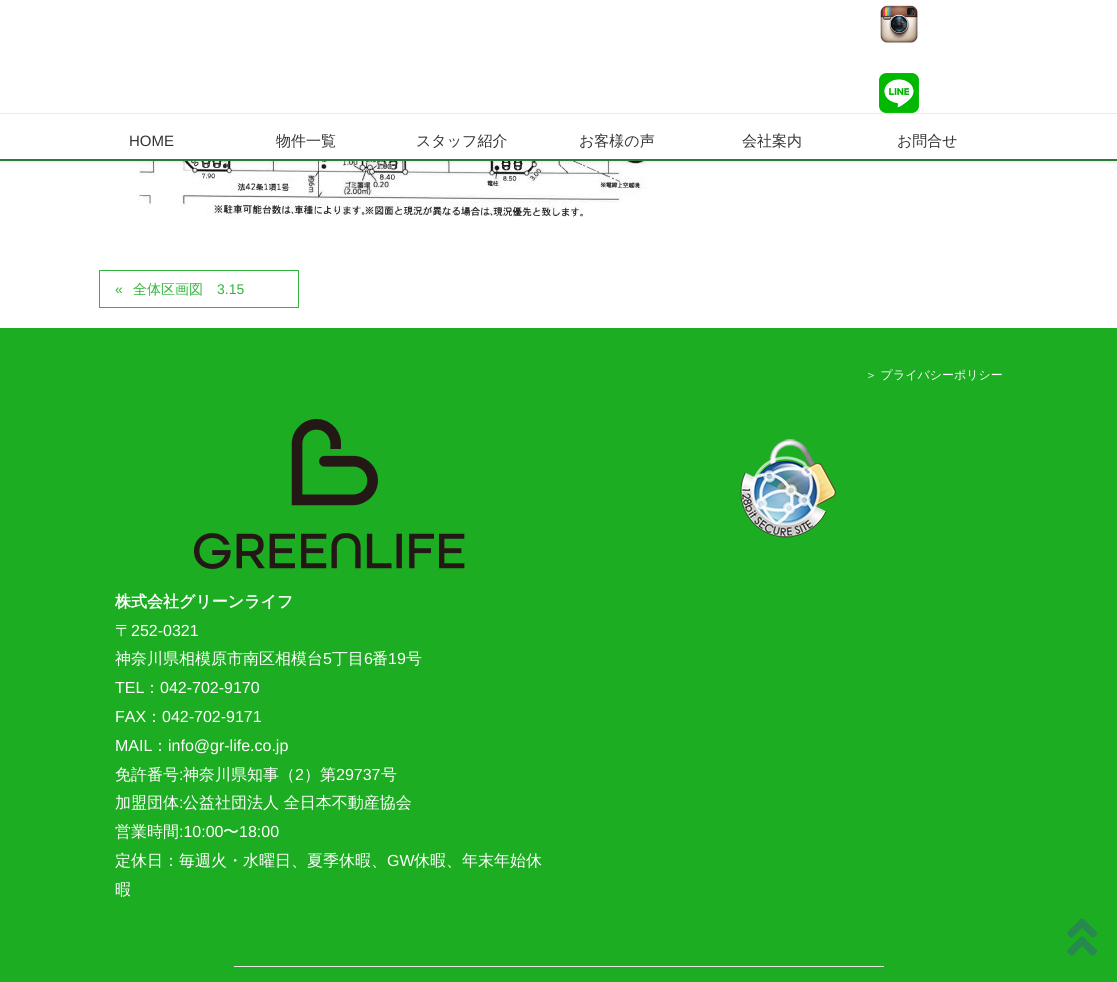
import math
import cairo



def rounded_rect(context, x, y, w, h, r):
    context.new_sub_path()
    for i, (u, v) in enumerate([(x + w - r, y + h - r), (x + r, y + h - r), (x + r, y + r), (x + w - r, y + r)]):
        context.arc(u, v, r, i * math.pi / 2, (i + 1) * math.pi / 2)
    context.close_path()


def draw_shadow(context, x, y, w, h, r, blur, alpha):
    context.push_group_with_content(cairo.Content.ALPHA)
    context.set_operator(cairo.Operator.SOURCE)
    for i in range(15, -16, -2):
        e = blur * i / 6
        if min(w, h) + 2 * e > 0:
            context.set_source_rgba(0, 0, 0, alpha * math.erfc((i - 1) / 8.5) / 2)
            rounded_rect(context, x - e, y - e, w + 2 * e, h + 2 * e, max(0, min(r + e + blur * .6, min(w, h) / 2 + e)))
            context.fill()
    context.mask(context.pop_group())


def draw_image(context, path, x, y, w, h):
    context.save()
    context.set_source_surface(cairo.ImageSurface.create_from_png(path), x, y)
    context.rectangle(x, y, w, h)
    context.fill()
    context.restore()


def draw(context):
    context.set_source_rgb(1, 1, 1)
    context.paint()
    draw_image(context, "images/3.png", 136, 161, 529, 56)
    context.set_source_rgb(0, 0, 0)
    draw_shadow(context, 0, -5, 1117, 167, 0, 1.5, 0.1)
    context.set_source_rgb(1, 1, 1)
    context.rectangle(0, 0, 1117, 159)
    context.fill()
    draw_image(context, "images/1.png", 880, 5, 38, 38)
    draw_image(context, "images/2.png", 879, 73, 40, 40)
    context.set_source_rgb(234 / 255, 234 / 255, 234 / 255)
    context.rectangle(0, 113, 1117, 1)
    context.fill()
    context.set_source_rgb(44 / 255, 124 / 255, 55 / 255)
    context.rectangle(0, 159, 1117, 2)
    context.fill()
    context.rectangle(99.5, 270.5, 199, 37)
    context.set_source_rgb(50 / 255, 181 / 255, 61 / 255)
    context.set_line_width(1)
    context.stroke()
    context.set_source_rgb(29 / 255, 173 / 255, 34 / 255)
    context.rectangle(0, 328, 1117, 654)
    context.fill()
    draw_image(context, "images/4.png", 740, 439, 96, 99)
    draw_image(context, "images/5.png", 194, 419, 271, 150)
    context.set_source_rgb(229 / 255, 229 / 255, 229 / 255)
    context.rectangle(234, 966, 650, 1)
    context.fill()
    draw_image(context, "images/6.png", 1067, 918, 30, 38)
    context.select_font_face("Liberation Sans")
    context.set_font_size(15)
    context.set_source_rgb(51 / 255, 51 / 255, 51 / 255)
    context.move_to(129, 146)
    context.show_text("HOME")
    context.select_font_face("WenQuanYi Zen Hei Medium")
    context.move_to(276, 146)
    context.show_text("物件一覧")
    context.move_to(416, 146)
    context.show_text("スタッフ紹介")
    context.move_to(579, 146)
    context.show_text("お客様の声")
    context.move_to(742, 146)
    context.show_text("会社案内")
    context.move_to(897, 146)
    context.show_text("お問合せ")
    context.select_font_face("Liberation Sans")
    context.set_font_size(14)
    context.set_source_rgb(50 / 255, 181 / 255, 61 / 255)
    context.move_to(115, 294)
    context.show_text("«")
    context.select_font_face("WenQuanYi Zen Hei Medium")
    context.move_to(133, 294)
    context.show_text("全体区画図")
    context.select_font_face("Liberation Sans")
    context.move_to(217, 294)
    context.show_text("3.15")
    context.select_font_face("WenQuanYi Zen Hei Medium")
    context.set_font_size(12)
    context.set_source_rgb(1, 1, 1)
    context.move_to(865, 379)
    context.show_text("＞ プライバシーポリシー")
    context.select_font_face("WenQuanYi Zen Hei", cairo.FontSlant.NORMAL, cairo.FontWeight.BOLD)
    context.set_font_size(16)
    context.move_to(115, 607)
    context.show_text("株式会社グリーンライフ")
    context.select_font_face("WenQuanYi Zen Hei Medium")
    context.move_to(115, 636)
    context.show_text("〒")
    context.select_font_face("Liberation Sans")
    context.move_to(131, 636)
    context.show_text("252-0321")
    context.select_font_face("WenQuanYi Zen Hei Medium")
    context.move_to(115, 664)
    context.show_text("神奈川県相模原市南区相模台")
    context.select_font_face("Liberation Sans")
    context.move_to(323, 664)
    context.show_text("5")
    context.select_font_face("WenQuanYi Zen Hei Medium")
    context.move_to(332, 664)
    context.show_text("丁目")
    context.select_font_face("Liberation Sans")
    context.move_to(364, 664)
    context.show_text("6")
    context.select_font_face("WenQuanYi Zen Hei Medium")
    context.move_to(372, 664)
    context.show_text("番")
    context.select_font_face("Liberation Sans")
    context.move_to(388, 664)
    context.show_text("19")
    context.select_font_face("WenQuanYi Zen Hei Medium")
    context.move_to(406, 664)
    context.show_text("号")
    context.select_font_face("Liberation Sans")
    context.move_to(115, 693)
    context.show_text("TEL")
    context.select_font_face("WenQuanYi Zen Hei Medium")
    context.move_to(144, 693)
    context.show_text("：")
    context.select_font_face("Liberation Sans")
    context.move_to(160, 693)
    context.show_text("042-702-9170")
    context.move_to(115, 722)
    context.show_text("FAX")
    context.select_font_face("WenQuanYi Zen Hei Medium")
    context.move_to(146, 722)
    context.show_text("：")
    context.select_font_face("Liberation Sans")
    context.move_to(162, 722)
    context.show_text("042-702-9171")
    context.move_to(115, 751)
    context.show_text("MAIL")
    context.select_font_face("WenQuanYi Zen Hei Medium")
    context.move_to(152, 751)
    context.show_text("：")
    context.select_font_face("Liberation Sans")
    context.move_to(168, 751)
    context.show_text("info@gr-life.co.jp")
    context.select_font_face("WenQuanYi Zen Hei Medium")
    context.move_to(115, 780)
    context.show_text("免許番号")
    context.select_font_face("Liberation Sans")
    context.move_to(179, 780)
    context.show_text(":")
    context.select_font_face("WenQuanYi Zen Hei Medium")
    context.move_to(183, 780)
    context.show_text("神奈川県知事（")
    context.select_font_face("Liberation Sans")
    context.move_to(295, 780)
    context.show_text("2")
    context.select_font_face("WenQuanYi Zen Hei Medium")
    context.move_to(304, 780)
    context.show_text("）第")
    context.select_font_face("Liberation Sans")
    context.move_to(336, 780)
    context.show_text("29737")
    context.select_font_face("WenQuanYi Zen Hei Medium")
    context.move_to(381, 780)
    context.show_text("号")
    context.move_to(115, 808)
    context.show_text("加盟団体")
    context.select_font_face("Liberation Sans")
    context.move_to(179, 808)
    context.show_text(":")
    context.select_font_face("WenQuanYi Zen Hei Medium")
    context.move_to(183, 808)
    context.show_text("公益社団法人 全日本不動産協会")
    context.move_to(115, 837)
    context.show_text("営業時間")
    context.select_font_face("Liberation Sans")
    context.move_to(179, 837)
    context.show_text(":10:00")
    context.select_font_face("WenQuanYi Zen Hei Medium")
    context.move_to(223, 837)
    context.show_text("〜")
    context.select_font_face("Liberation Sans")
    context.move_to(239, 837)
    context.show_text("18:00")
    context.select_font_face("WenQuanYi Zen Hei Medium")
    context.move_to(115, 866)
    context.show_text("定休日：毎週火・水曜日、夏季休暇、")
    context.select_font_face("Liberation Sans")
    context.move_to(387, 866)
    context.show_text("GW")
    context.select_font_face("WenQuanYi Zen Hei Medium")
    context.move_to(414, 866)
    context.show_text("休暇、年末年始休")
    context.move_to(115, 895)
    context.show_text("暇")


surface = cairo.ImageSurface(cairo.Format.RGB24, 1117, 982)
context = cairo.Context(surface)
options = cairo.FontOptions()
options.set_hint_metrics(cairo.HintMetrics.OFF)
options.set_hint_style(cairo.HintStyle.NONE)
context.set_font_options(options)
context.set_miter_limit(4)
draw(context)
surface.write_to_png("out.png")
